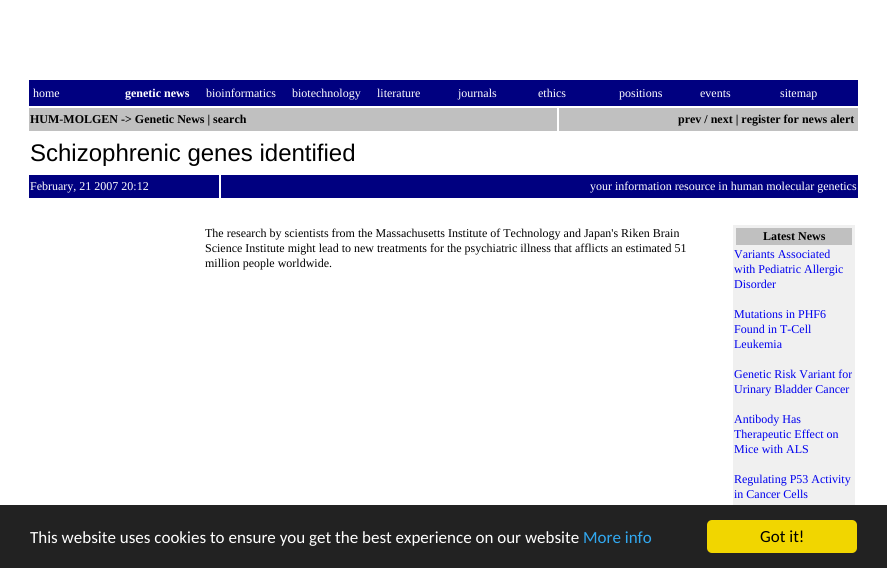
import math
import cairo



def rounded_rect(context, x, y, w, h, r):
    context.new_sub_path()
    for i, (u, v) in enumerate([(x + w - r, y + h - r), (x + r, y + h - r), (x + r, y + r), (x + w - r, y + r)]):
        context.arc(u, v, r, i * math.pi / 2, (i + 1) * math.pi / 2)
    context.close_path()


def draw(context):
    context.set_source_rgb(1, 1, 1)
    context.paint()
    context.set_source_rgb(0, 0, 128 / 255)
    context.rectangle(29, 80, 829, 26)
    context.fill()
    context.set_source_rgb(192 / 255, 192 / 255, 192 / 255)
    context.rectangle(29, 108, 528, 23)
    context.fill()
    context.rectangle(559, 108, 299, 23)
    context.fill()
    context.set_source_rgb(0, 0, 128 / 255)
    context.rectangle(29, 175, 190, 23)
    context.fill()
    context.rectangle(221, 175, 637, 23)
    context.fill()
    context.set_source_rgb(240 / 255, 240 / 255, 240 / 255)
    context.rectangle(733, 225, 122, 280)
    context.fill()
    context.set_source_rgb(192 / 255, 192 / 255, 192 / 255)
    context.rectangle(736, 228, 116, 17)
    context.fill()
    context.set_source_rgb(34 / 255, 34 / 255, 34 / 255)
    context.rectangle(0, 505, 887, 63)
    context.fill()
    context.set_source_rgb(241 / 255, 214 / 255, 0)
    rounded_rect(context, 707, 520, 150, 33, 5)
    context.fill()
    context.select_font_face("Liberation Serif")
    context.set_font_size(12)
    context.set_source_rgb(1, 1, 1)
    context.move_to(33, 97)
    context.show_text("home")
    context.select_font_face("Liberation Serif", cairo.FontSlant.NORMAL, cairo.FontWeight.BOLD)
    context.move_to(125, 97)
    context.show_text("genetic news")
    context.select_font_face("Liberation Serif")
    context.move_to(206, 97)
    context.show_text("bioinformatics")
    context.move_to(292, 97)
    context.show_text("biotechnology")
    context.move_to(377, 97)
    context.show_text("literature")
    context.move_to(458, 97)
    context.show_text("journals")
    context.move_to(538, 97)
    context.show_text("ethics")
    context.move_to(619, 97)
    context.show_text("positions")
    context.move_to(700, 97)
    context.show_text("events")
    context.move_to(780, 97)
    context.show_text("sitemap")
    context.select_font_face("Liberation Serif", cairo.FontSlant.NORMAL, cairo.FontWeight.BOLD)
    context.set_source_rgb(0, 0, 0)
    context.move_to(30, 123)
    context.show_text("HUM-MOLGEN -> Genetic News | search")
    context.move_to(678, 123)
    context.show_text("prev / next | register for news alert")
    context.select_font_face("Liberation Sans")
    context.set_font_size(24)
    context.move_to(30, 161)
    context.show_text("Schizophrenic genes identified")
    context.select_font_face("Liberation Serif")
    context.set_font_size(12)
    context.set_source_rgb(1, 1, 1)
    context.move_to(30, 190)
    context.show_text("February, 21 2007 20:12")
    context.move_to(590, 190)
    context.show_text("your information resource in human molecular genetics")
    context.set_source_rgb(0, 0, 0)
    context.move_to(205, 237)
    context.show_text("The research by scientists from the Massachusetts Institute of Technology and Japan's Riken Brain")
    context.move_to(205, 252)
    context.show_text("Science Institute might lead to new treatments for the psychiatric illness that afflicts an estimated 51")
    context.move_to(205, 267)
    context.show_text("million people worldwide.")
    context.select_font_face("Liberation Serif", cairo.FontSlant.NORMAL, cairo.FontWeight.BOLD)
    context.move_to(763, 240)
    context.show_text("Latest News")
    context.select_font_face("Liberation Serif")
    context.set_source_rgb(0, 0, 238 / 255)
    context.move_to(734, 258)
    context.show_text("Variants Associated")
    context.move_to(734, 273)
    context.show_text("with Pediatric Allergic")
    context.move_to(734, 288)
    context.show_text("Disorder")
    context.move_to(734, 318)
    context.show_text("Mutations in PHF6")
    context.move_to(734, 333)
    context.show_text("Found in T-Cell")
    context.move_to(734, 348)
    context.show_text("Leukemia")
    context.move_to(734, 378)
    context.show_text("Genetic Risk Variant for")
    context.move_to(734, 393)
    context.show_text("Urinary Bladder Cancer")
    context.move_to(734, 423)
    context.show_text("Antibody Has")
    context.move_to(734, 438)
    context.show_text("Therapeutic Effect on")
    context.move_to(734, 453)
    context.show_text("Mice with ALS")
    context.move_to(734, 483)
    context.show_text("Regulating P53 Activity")
    context.move_to(734, 498)
    context.show_text("in Cancer Cells")
    context.select_font_face("Carlito")
    context.set_font_size(17)
    context.set_source_rgb(1, 1, 1)
    context.move_to(30, 543)
    context.show_text("This website uses cookies to ensure you get the best experience on our website")
    context.set_source_rgb(49 / 255, 168 / 255, 240 / 255)
    context.move_to(583, 543)
    context.show_text("More info")
    context.set_source_rgb(0, 0, 0)
    context.move_to(760, 542)
    context.show_text("Got it!")


surface = cairo.ImageSurface(cairo.Format.RGB24, 887, 568)
context = cairo.Context(surface)
options = cairo.FontOptions()
options.set_hint_metrics(cairo.HintMetrics.OFF)
options.set_hint_style(cairo.HintStyle.NONE)
context.set_font_options(options)
context.set_miter_limit(4)
draw(context)
surface.write_to_png("out.png")
